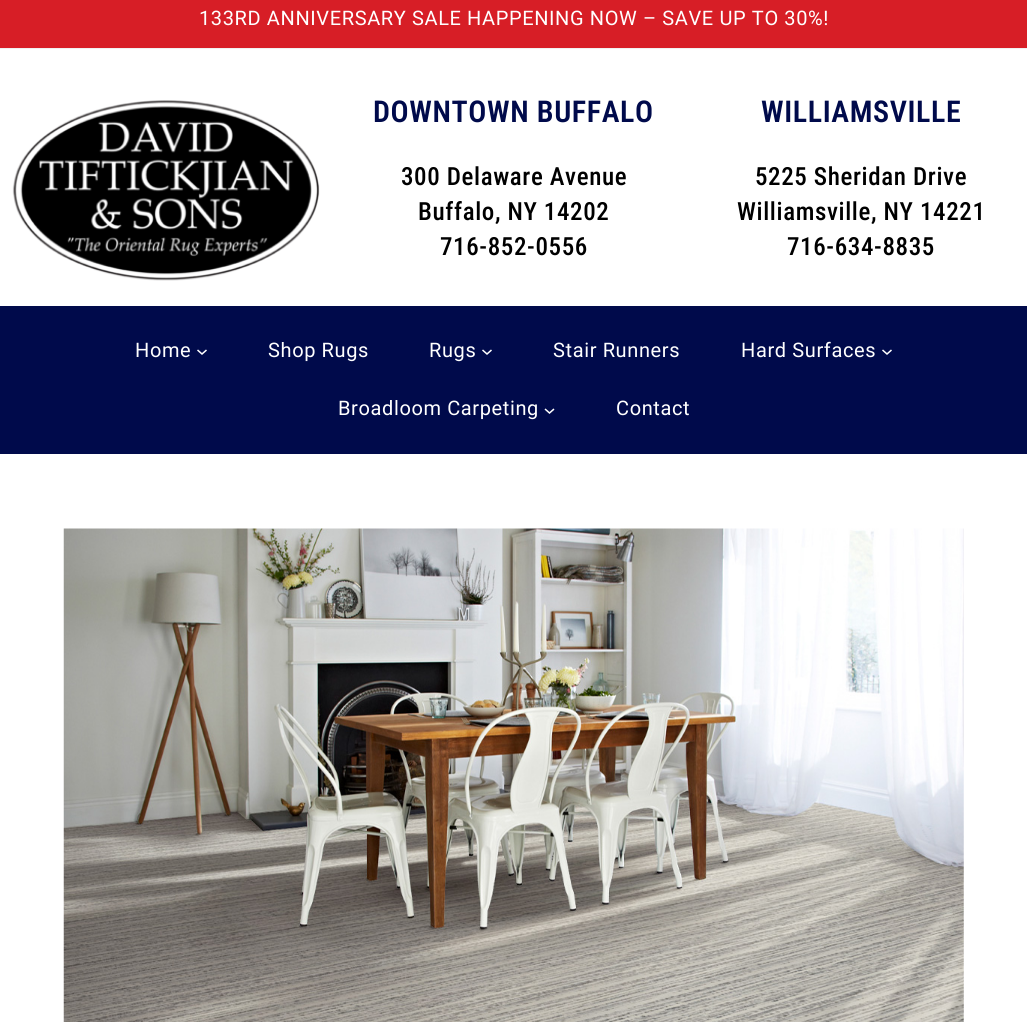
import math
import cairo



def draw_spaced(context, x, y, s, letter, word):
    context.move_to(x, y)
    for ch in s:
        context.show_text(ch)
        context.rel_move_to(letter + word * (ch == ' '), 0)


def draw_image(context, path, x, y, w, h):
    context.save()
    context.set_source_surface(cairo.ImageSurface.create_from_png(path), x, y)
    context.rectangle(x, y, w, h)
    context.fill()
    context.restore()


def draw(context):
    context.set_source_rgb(1, 1, 1)
    context.paint()
    context.set_source_rgb(215 / 255, 30 / 255, 38 / 255)
    context.rectangle(0, 0, 1027, 48)
    context.fill()
    context.set_source_rgb(241 / 255, 241 / 255, 241 / 255)
    context.rectangle(0, 48, 1027, 1)
    context.fill()
    draw_image(context, "images/1.png", 12, 100, 308, 181)
    context.set_source_rgb(0, 10 / 255, 75 / 255)
    context.rectangle(0, 306, 1027, 148)
    context.fill()
    context.new_path()
    context.move_to(197.5, 350)
    context.line_to(202, 354)
    context.line_to(206.5, 350)
    context.set_source_rgb(1, 1, 1)
    context.set_line_width(1.5)
    context.stroke()
    context.new_path()
    context.move_to(482.5, 350)
    context.line_to(487, 354)
    context.line_to(491.5, 350)
    context.stroke()
    context.new_path()
    context.move_to(882.5, 350)
    context.line_to(887, 354)
    context.line_to(891.5, 350)
    context.stroke()
    context.new_path()
    context.move_to(545, 409)
    context.line_to(549.5, 413)
    context.line_to(554, 409)
    context.stroke()
    draw_image(context, "images/2.png", 63, 528, 901, 494)
    context.select_font_face("Roboto")
    context.set_font_size(20)
    draw_spaced(context, 199, 25, "133RD ANNIVERSARY SALE HAPPENING NOW – SAVE UP TO 30%!", 0.62, 0)
    context.select_font_face("Roboto Condensed SemiBold")
    context.set_font_size(30)
    context.set_source_rgb(0, 10 / 255, 75 / 255)
    draw_spaced(context, 373, 122, "DOWNTOWN BUFFALO", 0.62, 0)
    context.select_font_face("Roboto Condensed Medium")
    context.set_font_size(25)
    context.set_source_rgb(0, 0, 0)
    draw_spaced(context, 401, 185, "300 Delaware Avenue", 0.62, 0)
    draw_spaced(context, 418, 220, "Buffalo, NY 14202", 0.62, 0)
    draw_spaced(context, 440, 255, "716-852-0556", 0.62, 0)
    context.select_font_face("Roboto Condensed SemiBold")
    context.set_font_size(30)
    context.set_source_rgb(0, 10 / 255, 75 / 255)
    draw_spaced(context, 761, 122, "WILLIAMSVILLE", 0.62, 0)
    context.select_font_face("Roboto Condensed Medium")
    context.set_font_size(25)
    context.set_source_rgb(0, 0, 0)
    draw_spaced(context, 755, 185, "5225 Sheridan Drive", 0.62, 0)
    draw_spaced(context, 737, 220, "Williamsville, NY 14221", 0.62, 0)
    draw_spaced(context, 787, 255, "716-634-8835", 0.62, 0)
    context.select_font_face("Roboto")
    context.set_font_size(20)
    context.set_source_rgb(1, 1, 1)
    draw_spaced(context, 135, 357, "Home", 0.62, 0)
    draw_spaced(context, 268, 357, "Shop Rugs", 0.62, 0)
    draw_spaced(context, 429, 357, "Rugs", 0.62, 0)
    draw_spaced(context, 553, 357, "Stair Runners", 0.62, 0)
    draw_spaced(context, 741, 357, "Hard Surfaces", 0.62, 0)
    draw_spaced(context, 338, 415, "Broadloom Carpeting", 0.62, 0)
    draw_spaced(context, 616, 415, "Contact", 0.62, 0)


surface = cairo.ImageSurface(cairo.Format.RGB24, 1027, 1022)
context = cairo.Context(surface)
options = cairo.FontOptions()
options.set_hint_metrics(cairo.HintMetrics.OFF)
options.set_hint_style(cairo.HintStyle.NONE)
context.set_font_options(options)
context.set_miter_limit(4)
draw(context)
surface.write_to_png("out.png")
